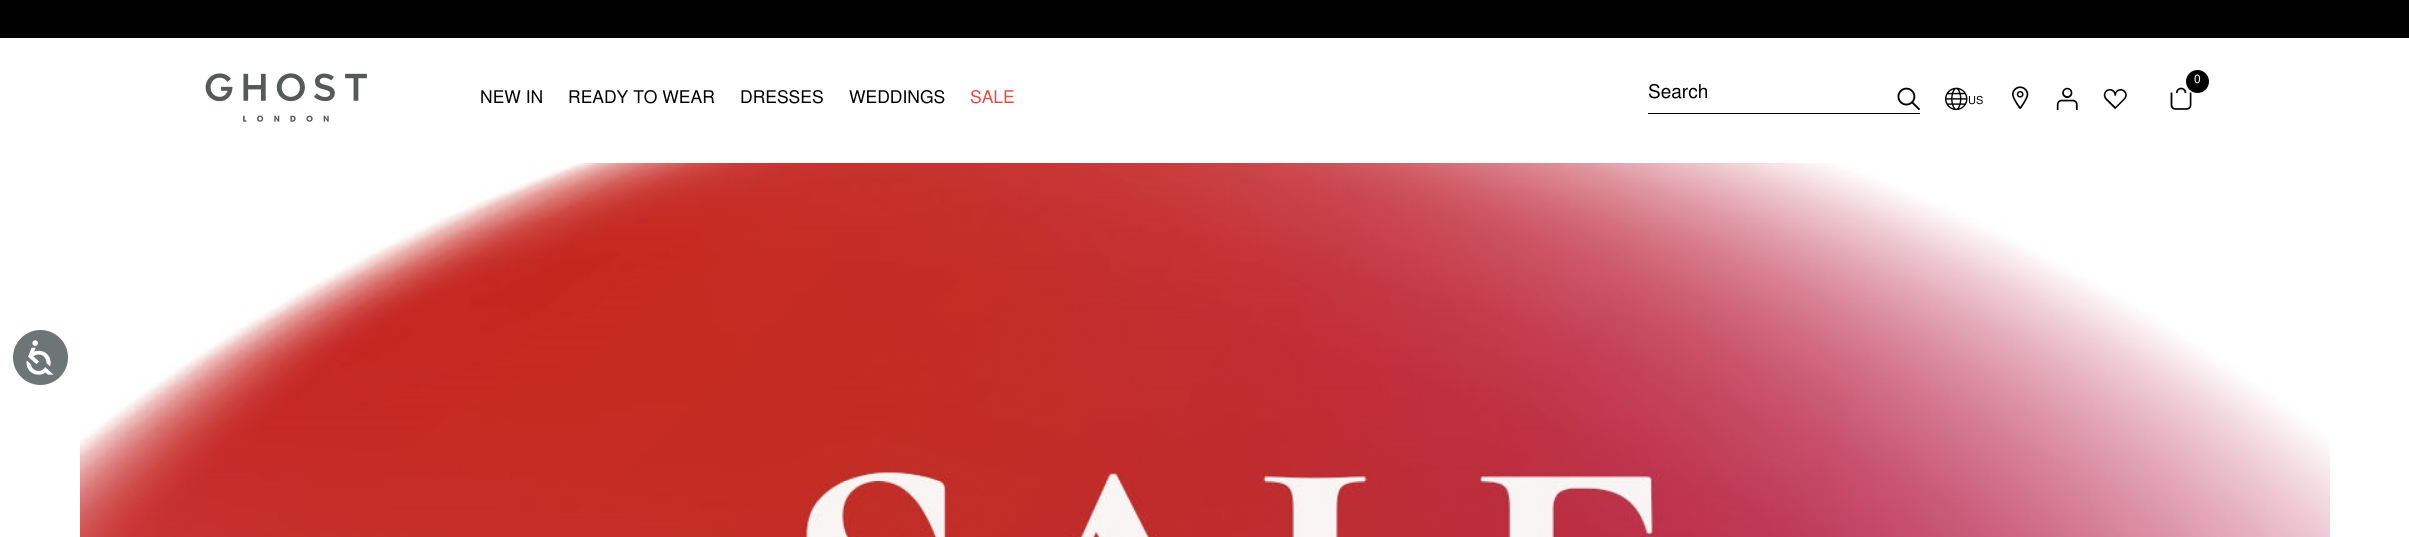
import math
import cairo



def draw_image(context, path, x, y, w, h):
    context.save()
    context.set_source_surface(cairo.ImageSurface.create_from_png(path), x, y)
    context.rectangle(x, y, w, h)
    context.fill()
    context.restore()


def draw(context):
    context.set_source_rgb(1, 1, 1)
    context.paint()
    context.set_source_rgb(0, 0, 0)
    context.rectangle(0, 0, 2409, 38)
    context.fill()
    draw_image(context, "images/1.png", 205, 73, 162, 49)
    draw_image(context, "images/2.png", 2170, 87, 22, 23)
    context.arc(2197.5, 81.5, 11.5, 0, 2 * math.pi)
    context.fill()
    context.rectangle(1648, 113, 272, 1)
    context.fill()
    draw_image(context, "images/3.png", 1897, 87, 23, 24)
    draw_image(context, "images/4.png", 1945, 87, 23, 24)
    draw_image(context, "images/5.png", 2012, 86, 17, 23)
    draw_image(context, "images/6.png", 2056, 87, 22, 24)
    draw_image(context, "images/7.png", 2103, 89, 24, 20)
    context.set_source_rgb(110 / 255, 117 / 255, 119 / 255)
    context.arc(40.5, 357.5, 27.5, 0, 2 * math.pi)
    context.fill()
    draw_image(context, "images/8.png", 26, 340, 28, 35)
    draw_image(context, "images/9.png", 80, 163, 2250, 374)
    context.select_font_face("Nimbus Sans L")
    context.set_font_size(17.5)
    context.set_source_rgb(0, 0, 0)
    context.move_to(480, 103)
    context.show_text("NEW IN")
    context.move_to(568, 103)
    context.show_text("READY TO WEAR")
    context.move_to(740, 103)
    context.show_text("DRESSES")
    context.move_to(849, 103)
    context.show_text("WEDDINGS")
    context.set_source_rgb(239 / 255, 71 / 255, 71 / 255)
    context.move_to(970, 103)
    context.show_text("SALE")
    context.set_font_size(12)
    context.set_source_rgb(1, 1, 1)
    context.move_to(2194, 83)
    context.show_text("0")
    context.set_font_size(19)
    context.set_source_rgb(0, 0, 0)
    context.move_to(1648, 98)
    context.show_text("Search")
    context.set_font_size(11)
    context.move_to(1968, 104)
    context.show_text("US")


surface = cairo.ImageSurface(cairo.Format.RGB24, 2409, 537)
context = cairo.Context(surface)
options = cairo.FontOptions()
options.set_hint_metrics(cairo.HintMetrics.OFF)
options.set_hint_style(cairo.HintStyle.NONE)
context.set_font_options(options)
context.set_miter_limit(4)
draw(context)
surface.write_to_png("out.png")
